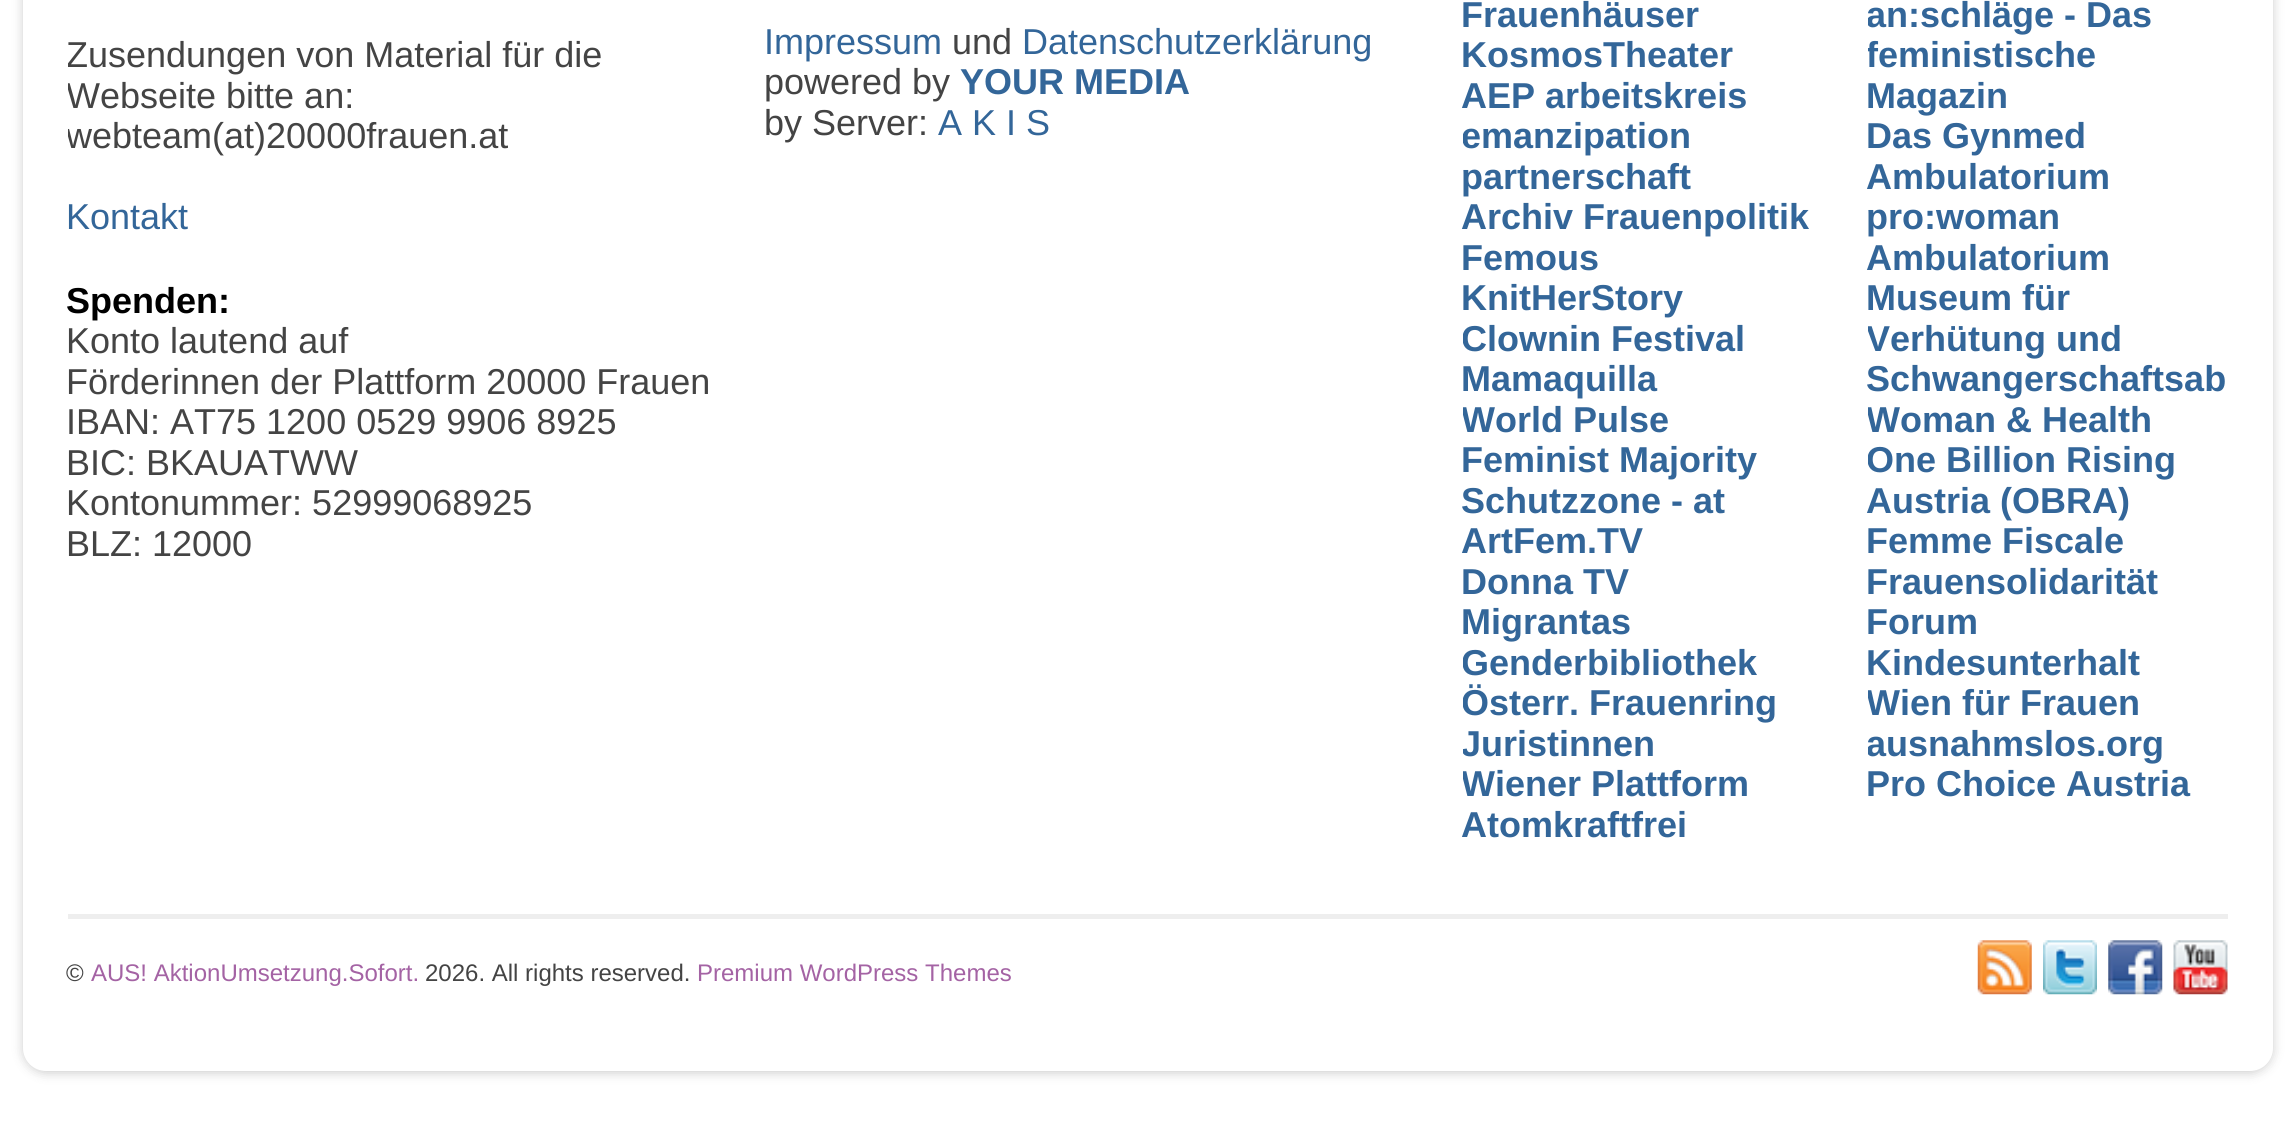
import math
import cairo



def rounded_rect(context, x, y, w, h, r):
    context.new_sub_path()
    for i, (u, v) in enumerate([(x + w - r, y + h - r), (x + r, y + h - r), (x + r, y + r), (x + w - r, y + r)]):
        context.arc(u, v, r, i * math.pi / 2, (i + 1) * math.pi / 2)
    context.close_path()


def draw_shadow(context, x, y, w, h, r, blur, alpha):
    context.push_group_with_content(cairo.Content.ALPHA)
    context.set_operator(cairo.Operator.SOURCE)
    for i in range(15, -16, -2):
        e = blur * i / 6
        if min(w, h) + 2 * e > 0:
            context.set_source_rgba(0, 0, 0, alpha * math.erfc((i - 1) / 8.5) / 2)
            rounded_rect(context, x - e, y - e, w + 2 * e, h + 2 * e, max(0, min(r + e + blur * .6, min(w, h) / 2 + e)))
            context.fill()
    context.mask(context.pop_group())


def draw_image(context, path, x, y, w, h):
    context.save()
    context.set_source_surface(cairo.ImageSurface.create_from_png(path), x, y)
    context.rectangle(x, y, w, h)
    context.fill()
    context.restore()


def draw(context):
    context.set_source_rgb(1, 1, 1)
    context.paint()
    context.set_source_rgb(0, 0, 0)
    draw_shadow(context, 23, -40, 2250, 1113, 23, 5.5, 0.2)
    context.set_source_rgb(1, 1, 1)
    rounded_rect(context, 23, -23, 2250, 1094, 23)
    context.fill()
    context.set_source_rgb(238 / 255, 238 / 255, 238 / 255)
    context.rectangle(68, 914, 2160, 5)
    context.fill()
    draw_image(context, "images/1.png", 1977, 940, 55, 55)
    draw_image(context, "images/2.png", 2043, 940, 54, 55)
    draw_image(context, "images/3.png", 2108, 940, 55, 55)
    draw_image(context, "images/4.png", 2173, 940, 55, 55)
    context.save()
    context.rectangle(68, 0, 652, 565)
    context.clip()
    context.select_font_face("Liberation Sans")
    context.set_font_size(36)
    context.set_source_rgb(68 / 255, 68 / 255, 68 / 255)
    context.move_to(66, 67)
    context.show_text("Zusendungen von Material für die")
    context.move_to(66, 108)
    context.show_text("Webseite bitte an:")
    context.move_to(66, 148)
    context.show_text("webteam(at)20000frauen.at")
    context.restore()
    context.select_font_face("Liberation Sans")
    context.set_font_size(36)
    context.set_source_rgb(51 / 255, 102 / 255, 153 / 255)
    context.move_to(66, 229)
    context.show_text("Kontakt")
    context.select_font_face("Liberation Sans", cairo.FontSlant.NORMAL, cairo.FontWeight.BOLD)
    context.set_source_rgb(0, 0, 0)
    context.move_to(66, 313)
    context.show_text("Spenden:")
    context.select_font_face("Liberation Sans")
    context.set_source_rgb(68 / 255, 68 / 255, 68 / 255)
    context.move_to(66, 353)
    context.show_text("Konto lautend auf")
    context.move_to(66, 394)
    context.show_text("Förderinnen der Plattform 20000 Frauen")
    context.move_to(66, 434)
    context.show_text("IBAN: AT75 1200 0529 9906 8925")
    context.move_to(66, 475)
    context.show_text("BIC: BKAUATWW")
    context.move_to(66, 515)
    context.show_text("Kontonummer: 52999068925")
    context.move_to(66, 556)
    context.show_text("BLZ: 12000")
    context.set_source_rgb(51 / 255, 102 / 255, 153 / 255)
    context.move_to(764, 54)
    context.show_text("Impressum")
    context.set_source_rgb(68 / 255, 68 / 255, 68 / 255)
    context.move_to(952, 54)
    context.show_text("und")
    context.set_source_rgb(51 / 255, 102 / 255, 153 / 255)
    context.move_to(1022, 54)
    context.show_text("Datenschutzerklärung")
    context.set_source_rgb(68 / 255, 68 / 255, 68 / 255)
    context.move_to(764, 94)
    context.show_text("powered by")
    context.select_font_face("Liberation Sans", cairo.FontSlant.NORMAL, cairo.FontWeight.BOLD)
    context.set_source_rgb(51 / 255, 102 / 255, 153 / 255)
    context.move_to(960, 94)
    context.show_text("YOUR MEDIA")
    context.select_font_face("Liberation Sans")
    context.set_source_rgb(68 / 255, 68 / 255, 68 / 255)
    context.move_to(764, 135)
    context.show_text("by Server:")
    context.set_source_rgb(51 / 255, 102 / 255, 153 / 255)
    context.move_to(938, 135)
    context.show_text("A K I S")
    context.select_font_face("Liberation Sans", cairo.FontSlant.NORMAL, cairo.FontWeight.BOLD)
    context.move_to(1461, 27)
    context.show_text("Frauenhäuser")
    context.move_to(1461, 67)
    context.show_text("KosmosTheater")
    context.move_to(1461, 108)
    context.show_text("AEP arbeitskreis")
    context.save()
    context.rectangle(1463, 0, 360, 846)
    context.clip()
    context.move_to(1461, 148)
    context.show_text("emanzipation")
    context.restore()
    context.move_to(1461, 189)
    context.show_text("partnerschaft")
    context.move_to(1461, 229)
    context.show_text("Archiv Frauenpolitik")
    context.move_to(1461, 270)
    context.show_text("Femous")
    context.move_to(1461, 310)
    context.show_text("KnitHerStory")
    context.save()
    context.rectangle(1463, 0, 360, 846)
    context.clip()
    context.move_to(1461, 351)
    context.show_text("Clownin Festival")
    context.restore()
    context.move_to(1461, 391)
    context.show_text("Mamaquilla")
    context.save()
    context.rectangle(1463, 0, 360, 846)
    context.clip()
    context.move_to(1461, 432)
    context.show_text("World Pulse")
    context.restore()
    context.move_to(1461, 472)
    context.show_text("Feminist Majority")
    context.move_to(1461, 513)
    context.show_text("Schutzzone - at")
    context.move_to(1461, 553)
    context.show_text("ArtFem.TV")
    context.move_to(1461, 594)
    context.show_text("Donna TV")
    context.move_to(1461, 634)
    context.show_text("Migrantas")
    context.save()
    context.rectangle(1463, 0, 360, 846)
    context.clip()
    context.move_to(1461, 675)
    context.show_text("Genderbibliothek")
    context.move_to(1461, 715)
    context.show_text("Österr. Frauenring")
    context.move_to(1461, 756)
    context.show_text("Juristinnen")
    context.move_to(1461, 796)
    context.show_text("Wiener Plattform")
    context.restore()
    context.move_to(1461, 837)
    context.show_text("Atomkraftfrei")
    context.save()
    context.rectangle(1868, 0, 360, 806)
    context.clip()
    context.move_to(1866, 27)
    context.show_text("an:schläge - Das")
    context.move_to(1866, 67)
    context.show_text("feministische")
    context.restore()
    context.move_to(1866, 108)
    context.show_text("Magazin")
    context.move_to(1866, 148)
    context.show_text("Das Gynmed")
    context.move_to(1866, 189)
    context.show_text("Ambulatorium")
    context.move_to(1866, 229)
    context.show_text("pro:woman")
    context.move_to(1866, 270)
    context.show_text("Ambulatorium")
    context.move_to(1866, 310)
    context.show_text("Museum für")
    context.save()
    context.rectangle(1868, 0, 360, 806)
    context.clip()
    context.move_to(1866, 351)
    context.show_text("Verhütung und")
    context.restore()
    context.move_to(1866, 391)
    context.show_text("Schwangerschaftsab")
    context.save()
    context.rectangle(1868, 0, 360, 806)
    context.clip()
    context.move_to(1866, 432)
    context.show_text("Woman & Health")
    context.move_to(1866, 472)
    context.show_text("One Billion Rising")
    context.restore()
    context.move_to(1866, 513)
    context.show_text("Austria (OBRA)")
    context.move_to(1866, 553)
    context.show_text("Femme Fiscale")
    context.move_to(1866, 594)
    context.show_text("Frauensolidarität")
    context.move_to(1866, 634)
    context.show_text("Forum")
    context.move_to(1866, 675)
    context.show_text("Kindesunterhalt")
    context.save()
    context.rectangle(1868, 0, 360, 806)
    context.clip()
    context.move_to(1866, 715)
    context.show_text("Wien für Frauen")
    context.move_to(1866, 756)
    context.show_text("ausnahmslos.org")
    context.restore()
    context.move_to(1866, 796)
    context.show_text("Pro Choice Austria")
    context.select_font_face("Liberation Sans")
    context.set_font_size(24)
    context.set_source_rgb(68 / 255, 68 / 255, 68 / 255)
    context.move_to(66, 981)
    context.show_text("©")
    context.set_source_rgb(164 / 255, 99 / 255, 164 / 255)
    context.move_to(91, 981)
    context.show_text("AUS! AktionUmsetzung.Sofort.")
    context.set_source_rgb(68 / 255, 68 / 255, 68 / 255)
    context.move_to(425, 981)
    context.show_text("2026. All rights reserved.")
    context.set_source_rgb(164 / 255, 99 / 255, 164 / 255)
    context.move_to(697, 981)
    context.show_text("Premium WordPress Themes")


surface = cairo.ImageSurface(cairo.Format.RGB24, 2291, 1138)
context = cairo.Context(surface)
options = cairo.FontOptions()
options.set_hint_metrics(cairo.HintMetrics.OFF)
options.set_hint_style(cairo.HintStyle.NONE)
context.set_font_options(options)
context.set_miter_limit(4)
draw(context)
surface.write_to_png("out.png")
